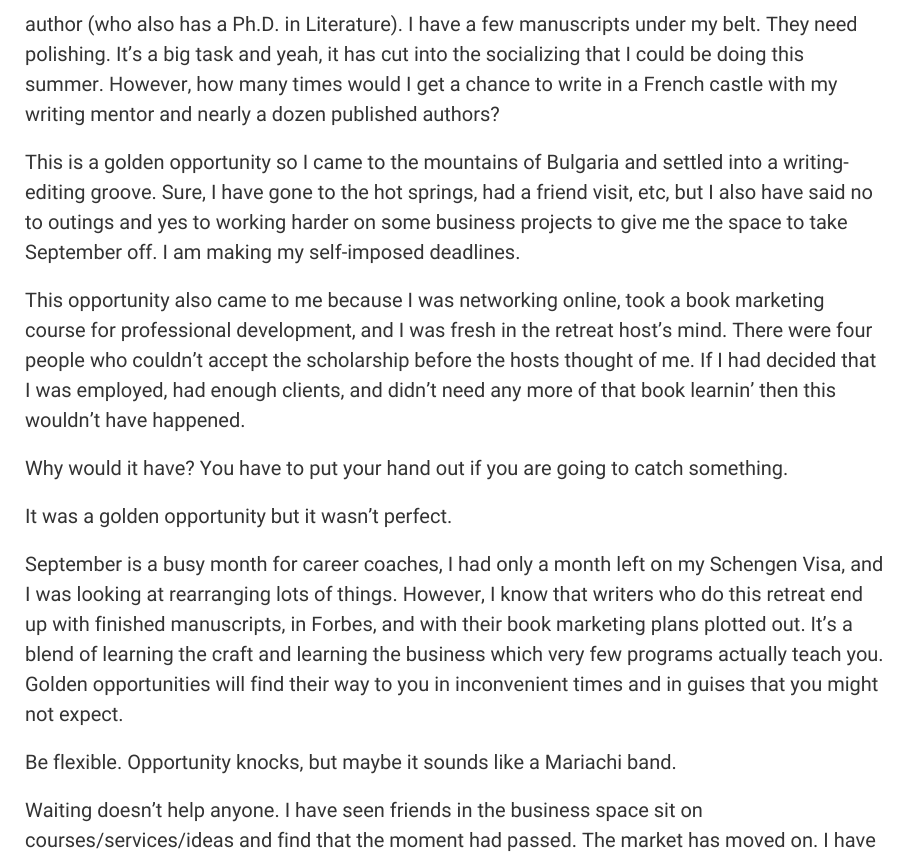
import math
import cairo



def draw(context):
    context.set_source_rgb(1, 1, 1)
    context.paint()
    context.select_font_face("Roboto")
    context.set_font_size(20)
    context.set_source_rgb(51 / 255, 51 / 255, 51 / 255)
    context.move_to(25, 31)
    context.show_text("author (who also has a Ph.D. in Literature). I have a few manuscripts under my belt. They need")
    context.move_to(25, 61)
    context.show_text("polishing. It’s a big task and yeah, it has cut into the socializing that I could be doing this")
    context.move_to(25, 91)
    context.show_text("summer. However, how many times would I get a chance to write in a French castle with my")
    context.move_to(25, 121)
    context.show_text("writing mentor and nearly a dozen published authors?")
    context.move_to(25, 169)
    context.show_text("This is a golden opportunity so I came to the mountains of Bulgaria and settled into a writing-")
    context.move_to(25, 199)
    context.show_text("editing groove. Sure, I have gone to the hot springs, had a friend visit, etc, but I also have said no")
    context.move_to(25, 229)
    context.show_text("to outings and yes to working harder on some business projects to give me the space to take")
    context.move_to(25, 259)
    context.show_text("September off. I am making my self-imposed deadlines.")
    context.move_to(25, 307)
    context.show_text("This opportunity also came to me because I was networking online, took a book marketing")
    context.move_to(25, 337)
    context.show_text("course for professional development, and I was fresh in the retreat host’s mind. There were four")
    context.move_to(25, 367)
    context.show_text("people who couldn’t accept the scholarship before the hosts thought of me. If I had decided that")
    context.move_to(25, 397)
    context.show_text("I was employed, had enough clients, and didn’t need any more of that book learnin’ then this")
    context.move_to(25, 427)
    context.show_text("wouldn’t have happened.")
    context.move_to(25, 475)
    context.show_text("Why would it have? You have to put your hand out if you are going to catch something.")
    context.move_to(25, 523)
    context.show_text("It was a golden opportunity but it wasn’t perfect.")
    context.move_to(25, 571)
    context.show_text("September is a busy month for career coaches, I had only a month left on my Schengen Visa, and")
    context.move_to(25, 601)
    context.show_text("I was looking at rearranging lots of things. However, I know that writers who do this retreat end")
    context.move_to(25, 631)
    context.show_text("up with finished manuscripts, in Forbes, and with their book marketing plans plotted out. It’s a")
    context.move_to(25, 661)
    context.show_text("blend of learning the craft and learning the business which very few programs actually teach you.")
    context.move_to(25, 691)
    context.show_text("Golden opportunities will find their way to you in inconvenient times and in guises that you might")
    context.move_to(25, 721)
    context.show_text("not expect.")
    context.move_to(25, 769)
    context.show_text("Be flexible. Opportunity knocks, but maybe it sounds like a Mariachi band.")
    context.move_to(25, 817)
    context.show_text("Waiting doesn’t help anyone. I have seen friends in the business space sit on")
    context.move_to(25, 847)
    context.show_text("courses/services/ideas and find that the moment had passed. The market has moved on. I have")


surface = cairo.ImageSurface(cairo.Format.RGB24, 911, 858)
context = cairo.Context(surface)
options = cairo.FontOptions()
options.set_hint_metrics(cairo.HintMetrics.OFF)
options.set_hint_style(cairo.HintStyle.NONE)
context.set_font_options(options)
context.set_miter_limit(4)
draw(context)
surface.write_to_png("out.png")
